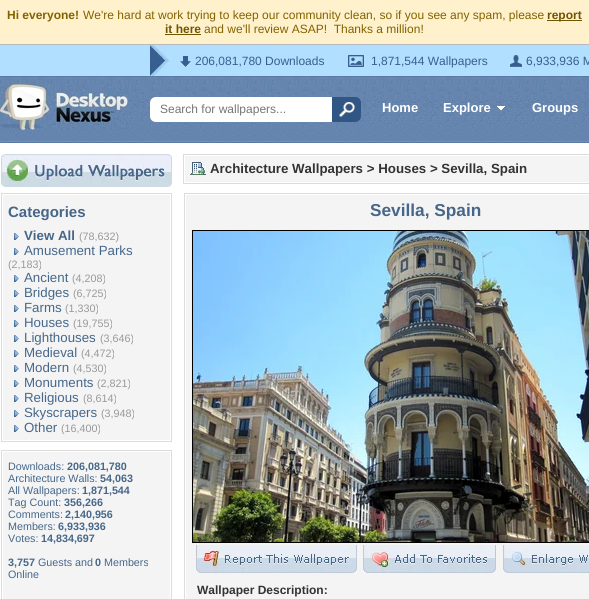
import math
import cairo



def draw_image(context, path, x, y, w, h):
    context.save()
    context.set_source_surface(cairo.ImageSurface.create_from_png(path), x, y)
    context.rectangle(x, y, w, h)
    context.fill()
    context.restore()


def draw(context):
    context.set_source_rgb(1, 1, 1)
    context.paint()
    context.set_source_rgb(1, 241 / 255, 203 / 255)
    context.rectangle(0, 0, 589, 44)
    context.fill()
    context.set_source_rgb(112 / 255, 85 / 255, 0)
    context.rectangle(547, 20, 35, 1)
    context.fill()
    context.rectangle(165, 34, 36, 1)
    context.fill()
    context.set_source_rgb(177 / 255, 223 / 255, 1)
    context.rectangle(0, 45, 589, 31)
    context.fill()
    context.set_source_rgb(182 / 255, 186 / 255, 192 / 255)
    context.rectangle(0, 44, 589, 1)
    context.fill()
    draw_image(context, "images/1.png", 150, 45, 19, 31)
    draw_image(context, "images/2.png", 180, 56, 11, 11)
    draw_image(context, "images/3.png", 348, 55, 16, 12)
    draw_image(context, "images/4.png", 510, 55, 12, 12)
    draw_image(context, "images/5.png", 0, 76, 589, 67)
    draw_image(context, "images/6.png", 0, 84, 128, 46)
    context.set_source_rgb(1, 1, 1)
    context.new_path()
    context.move_to(156, 97)
    context.line_to(348, 97)
    context.line_to(348, 122)
    context.line_to(156, 122)
    context.curve_to(152.5, 122, 150, 119.5, 150, 116)
    context.line_to(150, 103)
    context.curve_to(150, 99.5, 152.5, 97, 156, 97)
    context.close_path()
    context.fill()
    context.set_source_rgb(48 / 255, 86 / 255, 134 / 255)
    context.new_path()
    context.move_to(332, 97)
    context.line_to(355, 97)
    context.curve_to(358.5, 97, 361, 99.5, 361, 103)
    context.line_to(361, 116)
    context.curve_to(361, 119.5, 358.5, 122, 355, 122)
    context.line_to(332, 122)
    context.close_path()
    context.fill()
    draw_image(context, "images/7.png", 339, 102, 16, 15)
    draw_image(context, "images/8.png", 496, 106, 10, 5)
    draw_image(context, "images/9.png", 1, 154, 171, 33)
    context.rectangle(1.5, 193.5, 170, 248)
    context.set_source_rgb(220 / 255, 220 / 255, 220 / 255)
    context.set_line_width(1)
    context.stroke()
    context.set_source_rgb(244 / 255, 244 / 255, 244 / 255)
    context.rectangle(3, 195, 167, 245)
    context.fill()
    draw_image(context, "images/10.png", 14, 233, 5, 7)
    draw_image(context, "images/10.png", 14, 248, 5, 7)
    draw_image(context, "images/10.png", 14, 275, 5, 7)
    draw_image(context, "images/10.png", 14, 290, 5, 7)
    draw_image(context, "images/10.png", 14, 305, 5, 7)
    draw_image(context, "images/10.png", 14, 320, 5, 7)
    draw_image(context, "images/10.png", 14, 335, 5, 7)
    draw_image(context, "images/10.png", 14, 350, 5, 7)
    draw_image(context, "images/10.png", 14, 365, 5, 7)
    draw_image(context, "images/10.png", 14, 380, 5, 7)
    draw_image(context, "images/10.png", 14, 395, 5, 7)
    draw_image(context, "images/10.png", 14, 410, 5, 7)
    draw_image(context, "images/10.png", 14, 425, 5, 7)
    context.rectangle(1.5, 450.5, 170, 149)
    context.set_source_rgb(220 / 255, 220 / 255, 220 / 255)
    context.stroke()
    context.set_source_rgb(244 / 255, 244 / 255, 244 / 255)
    context.rectangle(3, 452, 167, 147)
    context.fill()
    context.rectangle(183.5, 154.5, 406, 29)
    context.set_source_rgb(220 / 255, 220 / 255, 220 / 255)
    context.stroke()
    context.set_source_rgb(244 / 255, 244 / 255, 244 / 255)
    context.rectangle(185, 156, 404, 26)
    context.fill()
    draw_image(context, "images/11.png", 190, 161, 16, 16)
    context.rectangle(184.5, 193.5, 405, 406)
    context.set_source_rgb(220 / 255, 220 / 255, 220 / 255)
    context.stroke()
    context.set_source_rgb(244 / 255, 244 / 255, 244 / 255)
    context.rectangle(186, 195, 403, 404)
    context.fill()
    context.rectangle(192.5, 230.5, 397, 312)
    context.set_source_rgb(0, 0, 0)
    context.stroke()
    draw_image(context, "images/12.png", 193, 231, 396, 311)
    draw_image(context, "images/13.png", 196, 545, 161, 28)
    draw_image(context, "images/14.png", 363, 545, 133, 28)
    draw_image(context, "images/15.png", 503, 545, 86, 28)
    context.select_font_face("Liberation Sans", cairo.FontSlant.NORMAL, cairo.FontWeight.BOLD)
    context.set_font_size(12)
    context.set_source_rgb(130 / 255, 98 / 255, 0)
    context.move_to(7, 19)
    context.show_text("Hi everyone!")
    context.select_font_face("Liberation Sans")
    context.move_to(83, 19)
    context.show_text("We're hard at work trying to keep our community clean, so if you see any spam, please")
    context.select_font_face("Liberation Sans", cairo.FontSlant.NORMAL, cairo.FontWeight.BOLD)
    context.set_source_rgb(112 / 255, 85 / 255, 0)
    context.move_to(547, 19)
    context.show_text("report")
    context.move_to(165, 33)
    context.show_text("it here")
    context.select_font_face("Liberation Sans")
    context.set_source_rgb(130 / 255, 98 / 255, 0)
    context.move_to(204, 33)
    context.show_text("and we'll review ASAP!  Thanks a million!")
    context.set_source_rgb(55 / 255, 94 / 255, 144 / 255)
    context.move_to(195, 65)
    context.show_text("206,081,780 Downloads")
    context.move_to(371, 65)
    context.show_text("1,871,544 Wallpapers")
    context.move_to(526, 65)
    context.show_text("6,933,936 M")
    context.set_source_rgb(117 / 255, 117 / 255, 117 / 255)
    context.move_to(160, 113)
    context.show_text("Search for wallpapers...")
    context.select_font_face("Liberation Sans", cairo.FontSlant.NORMAL, cairo.FontWeight.BOLD)
    context.set_font_size(13)
    context.set_source_rgb(1, 1, 1)
    context.move_to(382, 112)
    context.show_text("Home")
    context.move_to(443, 112)
    context.show_text("Explore")
    context.move_to(532, 112)
    context.show_text("Groups")
    context.set_font_size(15)
    context.set_source_rgb(70 / 255, 103 / 255, 138 / 255)
    context.move_to(8, 217)
    context.show_text("Categories")
    context.set_font_size(13.3)
    context.move_to(24, 240)
    context.show_text("View All")
    context.select_font_face("Liberation Sans")
    context.set_font_size(10.75)
    context.set_source_rgb(153 / 255, 153 / 255, 153 / 255)
    context.move_to(79, 240)
    context.show_text("(78,632)")
    context.set_font_size(13.3)
    context.set_source_rgb(70 / 255, 103 / 255, 138 / 255)
    context.move_to(24, 255)
    context.show_text("Amusement Parks")
    context.set_font_size(10.75)
    context.set_source_rgb(153 / 255, 153 / 255, 153 / 255)
    context.move_to(8, 268)
    context.show_text("(2,183)")
    context.set_font_size(13.3)
    context.set_source_rgb(70 / 255, 103 / 255, 138 / 255)
    context.move_to(24, 282)
    context.show_text("Ancient")
    context.set_font_size(10.75)
    context.set_source_rgb(153 / 255, 153 / 255, 153 / 255)
    context.move_to(72, 282)
    context.show_text("(4,208)")
    context.set_font_size(13.3)
    context.set_source_rgb(70 / 255, 103 / 255, 138 / 255)
    context.move_to(24, 297)
    context.show_text("Bridges")
    context.set_font_size(10.75)
    context.set_source_rgb(153 / 255, 153 / 255, 153 / 255)
    context.move_to(73, 297)
    context.show_text("(6,725)")
    context.set_font_size(13.3)
    context.set_source_rgb(70 / 255, 103 / 255, 138 / 255)
    context.move_to(24, 312)
    context.show_text("Farms")
    context.set_font_size(10.75)
    context.set_source_rgb(153 / 255, 153 / 255, 153 / 255)
    context.move_to(65, 312)
    context.show_text("(1,330)")
    context.set_font_size(13.3)
    context.set_source_rgb(70 / 255, 103 / 255, 138 / 255)
    context.move_to(24, 327)
    context.show_text("Houses")
    context.set_font_size(10.75)
    context.set_source_rgb(153 / 255, 153 / 255, 153 / 255)
    context.move_to(73, 327)
    context.show_text("(19,755)")
    context.set_font_size(13.3)
    context.set_source_rgb(70 / 255, 103 / 255, 138 / 255)
    context.move_to(24, 342)
    context.show_text("Lighthouses")
    context.set_font_size(10.75)
    context.set_source_rgb(153 / 255, 153 / 255, 153 / 255)
    context.move_to(100, 342)
    context.show_text("(3,646)")
    context.set_font_size(13.3)
    context.set_source_rgb(70 / 255, 103 / 255, 138 / 255)
    context.move_to(24, 357)
    context.show_text("Medieval")
    context.set_font_size(10.75)
    context.set_source_rgb(153 / 255, 153 / 255, 153 / 255)
    context.move_to(81, 357)
    context.show_text("(4,472)")
    context.set_font_size(13.3)
    context.set_source_rgb(70 / 255, 103 / 255, 138 / 255)
    context.move_to(24, 372)
    context.show_text("Modern")
    context.set_font_size(10.75)
    context.set_source_rgb(153 / 255, 153 / 255, 153 / 255)
    context.move_to(73, 372)
    context.show_text("(4,530)")
    context.set_font_size(13.3)
    context.set_source_rgb(70 / 255, 103 / 255, 138 / 255)
    context.move_to(24, 387)
    context.show_text("Monuments")
    context.set_font_size(10.75)
    context.set_source_rgb(153 / 255, 153 / 255, 153 / 255)
    context.move_to(97, 387)
    context.show_text("(2,821)")
    context.set_font_size(13.3)
    context.set_source_rgb(70 / 255, 103 / 255, 138 / 255)
    context.move_to(24, 402)
    context.show_text("Religious")
    context.set_font_size(10.75)
    context.set_source_rgb(153 / 255, 153 / 255, 153 / 255)
    context.move_to(83, 402)
    context.show_text("(8,614)")
    context.set_font_size(13.3)
    context.set_source_rgb(70 / 255, 103 / 255, 138 / 255)
    context.move_to(24, 417)
    context.show_text("Skyscrapers")
    context.set_font_size(10.75)
    context.set_source_rgb(153 / 255, 153 / 255, 153 / 255)
    context.move_to(101, 417)
    context.show_text("(3,948)")
    context.set_font_size(13.3)
    context.set_source_rgb(70 / 255, 103 / 255, 138 / 255)
    context.move_to(24, 432)
    context.show_text("Other")
    context.set_font_size(10.75)
    context.set_source_rgb(153 / 255, 153 / 255, 153 / 255)
    context.move_to(61, 432)
    context.show_text("(16,400)")
    context.set_source_rgb(70 / 255, 103 / 255, 138 / 255)
    context.move_to(8, 470)
    context.show_text("Downloads:")
    context.select_font_face("Liberation Sans", cairo.FontSlant.NORMAL, cairo.FontWeight.BOLD)
    context.move_to(67, 470)
    context.show_text("206,081,780")
    context.select_font_face("Liberation Sans")
    context.move_to(8, 482)
    context.show_text("Architecture Walls:")
    context.select_font_face("Liberation Sans", cairo.FontSlant.NORMAL, cairo.FontWeight.BOLD)
    context.move_to(100, 482)
    context.show_text("54,063")
    context.select_font_face("Liberation Sans")
    context.move_to(8, 494)
    context.show_text("All Wallpapers:")
    context.select_font_face("Liberation Sans", cairo.FontSlant.NORMAL, cairo.FontWeight.BOLD)
    context.move_to(82, 494)
    context.show_text("1,871,544")
    context.select_font_face("Liberation Sans")
    context.move_to(8, 506)
    context.show_text("Tag Count:")
    context.select_font_face("Liberation Sans", cairo.FontSlant.NORMAL, cairo.FontWeight.BOLD)
    context.move_to(64, 506)
    context.show_text("356,266")
    context.select_font_face("Liberation Sans")
    context.move_to(8, 518)
    context.show_text("Comments:")
    context.select_font_face("Liberation Sans", cairo.FontSlant.NORMAL, cairo.FontWeight.BOLD)
    context.move_to(65, 518)
    context.show_text("2,140,956")
    context.select_font_face("Liberation Sans")
    context.move_to(8, 530)
    context.show_text("Members:")
    context.select_font_face("Liberation Sans", cairo.FontSlant.NORMAL, cairo.FontWeight.BOLD)
    context.move_to(58, 530)
    context.show_text("6,933,936")
    context.select_font_face("Liberation Sans")
    context.move_to(8, 542)
    context.show_text("Votes:")
    context.select_font_face("Liberation Sans", cairo.FontSlant.NORMAL, cairo.FontWeight.BOLD)
    context.move_to(41, 542)
    context.show_text("14,834,697")
    context.move_to(8, 566)
    context.show_text("3,757")
    context.select_font_face("Liberation Sans")
    context.move_to(38, 566)
    context.show_text("Guests and")
    context.select_font_face("Liberation Sans", cairo.FontSlant.NORMAL, cairo.FontWeight.BOLD)
    context.move_to(95, 566)
    context.show_text("0")
    context.select_font_face("Liberation Sans")
    context.move_to(104, 566)
    context.show_text("Members")
    context.move_to(8, 578)
    context.show_text("Online")
    context.select_font_face("Liberation Sans", cairo.FontSlant.NORMAL, cairo.FontWeight.BOLD)
    context.set_font_size(13.3)
    context.set_source_rgb(51 / 255, 51 / 255, 51 / 255)
    context.move_to(210, 173)
    context.show_text("Architecture Wallpapers > Houses > Sevilla, Spain")
    context.set_font_size(17.25)
    context.set_source_rgb(70 / 255, 103 / 255, 138 / 255)
    context.move_to(370, 216)
    context.show_text("Sevilla, Spain")
    context.set_font_size(12)
    context.set_source_rgb(51 / 255, 51 / 255, 51 / 255)
    context.move_to(197, 594)
    context.show_text("Wallpaper Description:")


surface = cairo.ImageSurface(cairo.Format.RGB24, 589, 599)
context = cairo.Context(surface)
options = cairo.FontOptions()
options.set_hint_metrics(cairo.HintMetrics.OFF)
options.set_hint_style(cairo.HintStyle.NONE)
context.set_font_options(options)
context.set_miter_limit(4)
draw(context)
surface.write_to_png("out.png")
